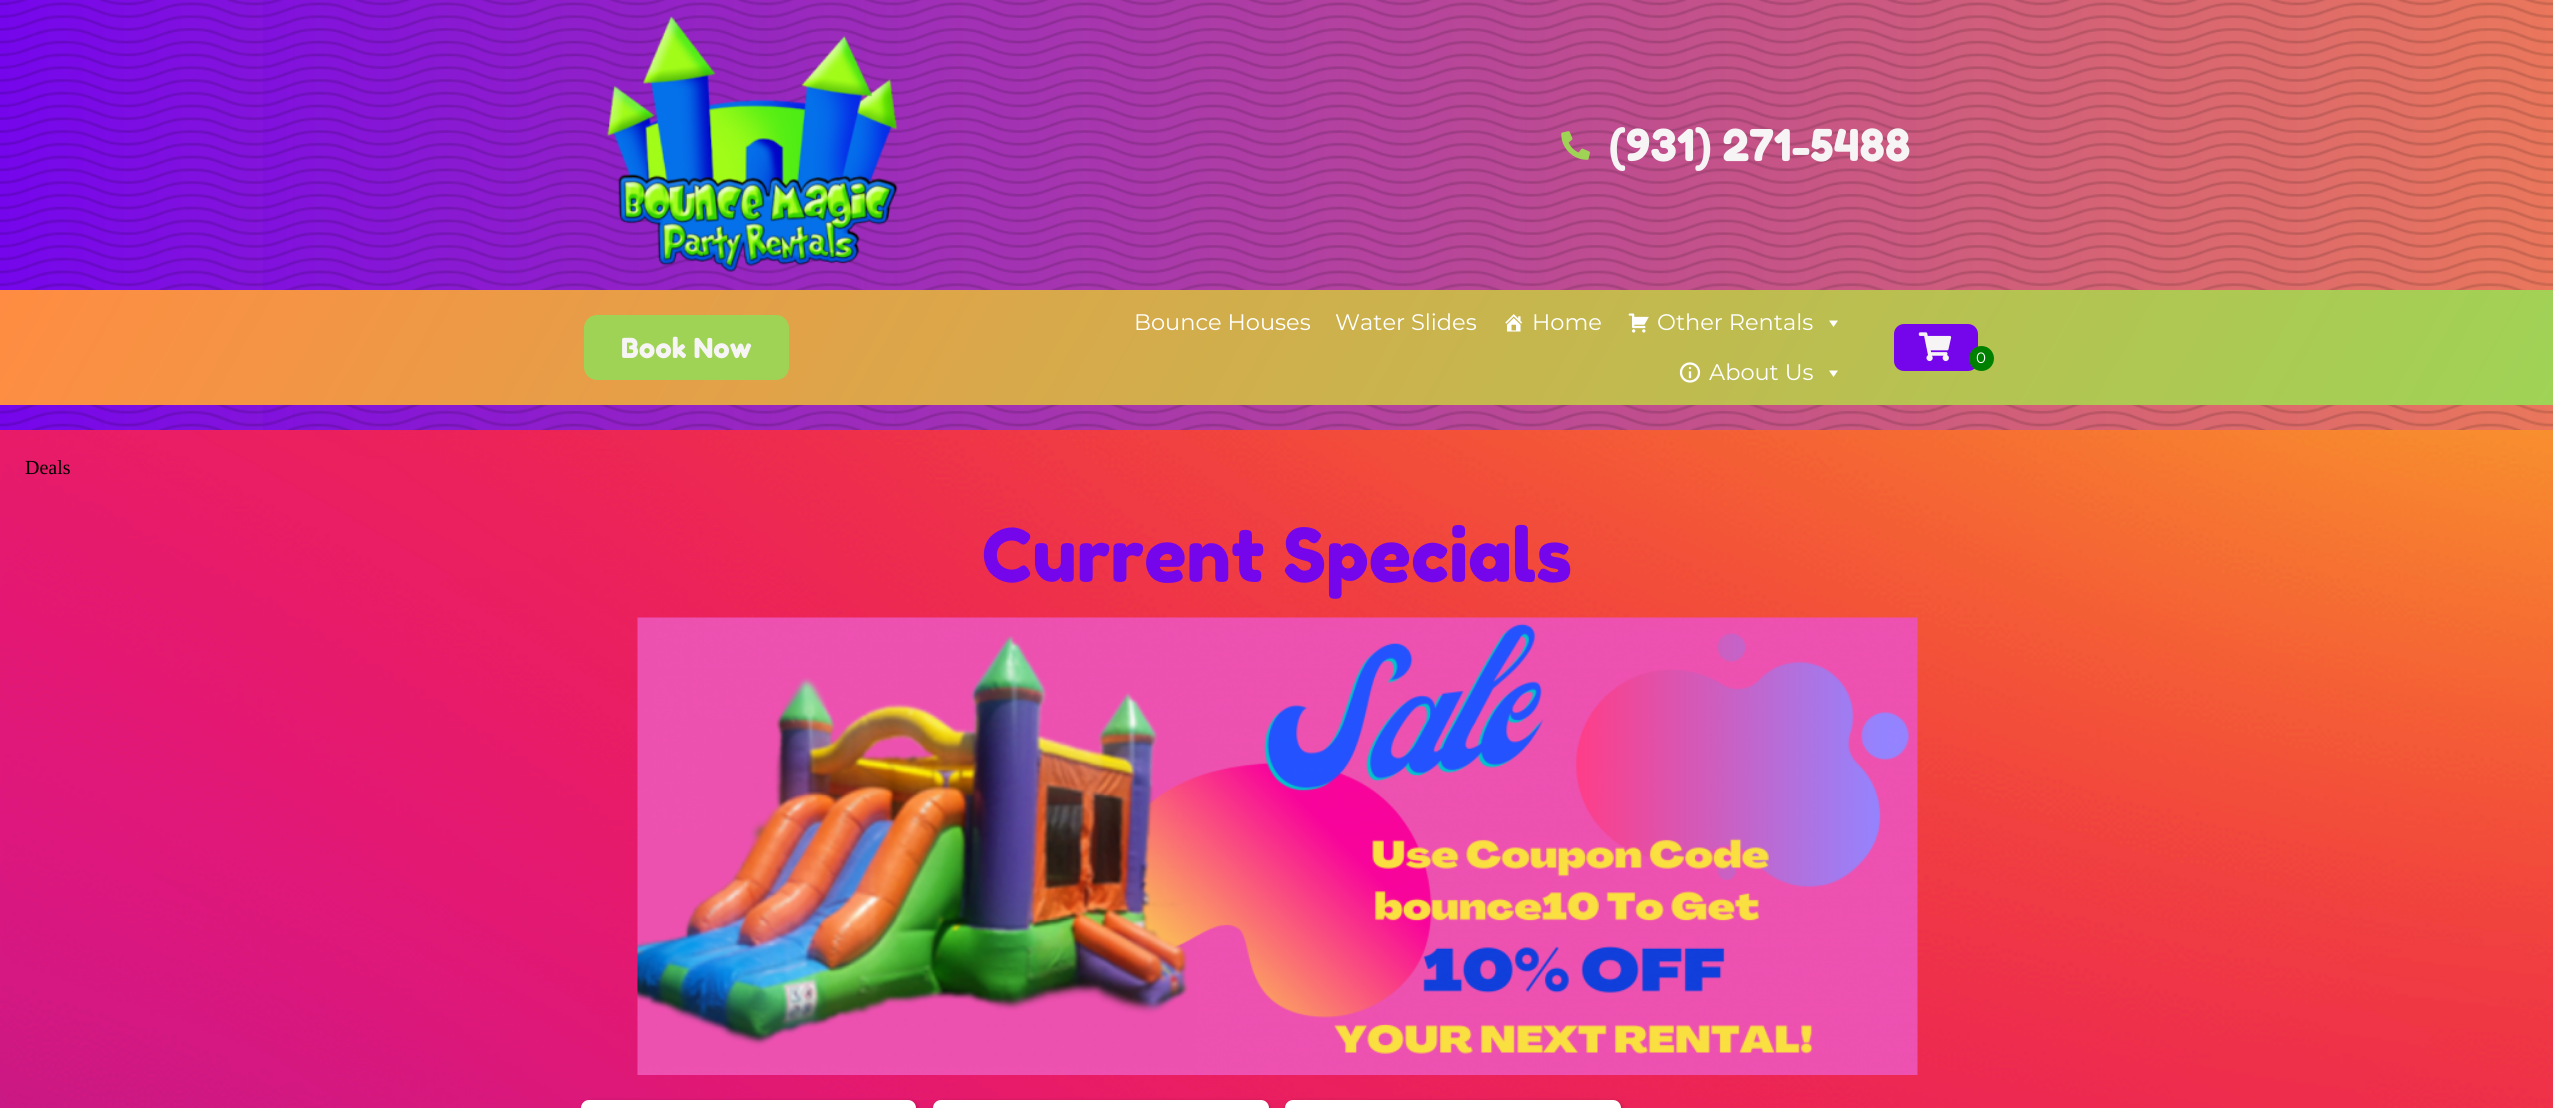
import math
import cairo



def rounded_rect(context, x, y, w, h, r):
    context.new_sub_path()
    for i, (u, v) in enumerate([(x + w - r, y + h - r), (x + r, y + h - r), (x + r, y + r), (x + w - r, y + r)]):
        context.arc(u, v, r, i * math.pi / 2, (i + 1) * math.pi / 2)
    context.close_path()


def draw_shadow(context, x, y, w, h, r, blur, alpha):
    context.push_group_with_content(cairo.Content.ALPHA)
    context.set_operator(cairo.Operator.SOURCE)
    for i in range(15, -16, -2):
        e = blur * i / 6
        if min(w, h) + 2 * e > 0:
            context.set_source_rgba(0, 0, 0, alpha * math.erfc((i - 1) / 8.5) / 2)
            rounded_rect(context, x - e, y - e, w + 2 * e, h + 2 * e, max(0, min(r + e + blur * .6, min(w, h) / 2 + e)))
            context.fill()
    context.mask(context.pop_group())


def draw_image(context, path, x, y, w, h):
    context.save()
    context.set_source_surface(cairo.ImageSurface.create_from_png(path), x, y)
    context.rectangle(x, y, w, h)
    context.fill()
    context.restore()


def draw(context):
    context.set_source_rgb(1, 1, 1)
    context.paint()
    draw_image(context, "images/1.png", 0, 430, 2553, 678)
    gradient = cairo.LinearGradient(0, 215, 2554, 215)
    gradient.add_color_stop_rgba(0, 117 / 255, 6 / 255, 236 / 255, 1)
    gradient.add_color_stop_rgba(1, 1, 140 / 255, 66 / 255, 1)
    context.set_source(gradient)
    context.rectangle(0, 0, 2553, 430)
    context.fill()
    context.set_source_rgba(117 / 255, 6 / 255, 236 / 255, 0.15)
    context.rectangle(263, 0, 2290, 430)
    context.fill()
    draw_image(context, "images/2.png", 0, 0, 2553, 430)
    draw_image(context, "images/3.png", 606, 16, 292, 257)
    draw_image(context, "images/4.png", 1561, 131, 29, 29)
    gradient = cairo.LinearGradient(294, -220, 2259, 915)
    gradient.add_color_stop_rgba(0, 1, 140 / 255, 66 / 255, 1)
    gradient.add_color_stop_rgba(1, 159 / 255, 211 / 255, 86 / 255, 1)
    context.set_source(gradient)
    context.rectangle(0, 290, 2553, 115)
    context.fill()
    context.set_source_rgb(159 / 255, 211 / 255, 86 / 255)
    rounded_rect(context, 584, 315, 205, 65, 13)
    context.fill()
    draw_image(context, "images/5.png", 1505, 314, 18, 18)
    draw_image(context, "images/6.png", 1628, 313, 21, 20)
    context.set_source_rgb(1, 1, 1)
    context.new_path()
    context.move_to(1838, 320.5)
    context.line_to(1833.5, 327)
    context.line_to(1829, 320.5)
    context.close_path()
    context.fill()
    draw_image(context, "images/7.png", 1679, 362, 22, 21)
    context.new_path()
    context.move_to(1838, 370.5)
    context.line_to(1833.5, 377)
    context.line_to(1829, 370.5)
    context.close_path()
    context.fill()
    context.set_source_rgb(117 / 255, 6 / 255, 236 / 255)
    rounded_rect(context, 1894, 324, 84, 47, 10)
    context.fill()
    draw_image(context, "images/8.png", 1918, 332, 34, 30)
    context.set_source_rgb(0, 128 / 255, 0)
    context.arc(1981.5, 358.5, 12.5, 0, 2 * math.pi)
    context.fill()
    draw_image(context, "images/9.png", 637, 617, 1281, 458)
    context.set_source_rgb(0, 0, 0)
    draw_shadow(context, 583, 1101, 335, 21, 8, 2, 0.2)
    context.set_source_rgb(1, 1, 1)
    rounded_rect(context, 581, 1100, 335, 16, 8)
    context.fill()
    context.set_source_rgb(0, 0, 0)
    draw_shadow(context, 934, 1101, 336, 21, 8, 2, 0.2)
    context.set_source_rgb(1, 1, 1)
    rounded_rect(context, 933, 1100, 336, 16, 8)
    context.fill()
    context.set_source_rgb(0, 0, 0)
    draw_shadow(context, 1286, 1101, 337, 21, 8, 2, 0.2)
    context.set_source_rgb(1, 1, 1)
    rounded_rect(context, 1285, 1100, 336, 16, 8)
    context.fill()
    context.select_font_face("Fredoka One")
    context.set_font_size(43.75)
    context.set_source_rgb(246 / 255, 244 / 255, 244 / 255)
    context.move_to(1609, 161)
    context.show_text("(931) 271-5488")
    context.set_font_size(27.5)
    context.move_to(621, 358)
    context.show_text("Book Now")
    context.select_font_face("Montserrat")
    context.set_font_size(22.5)
    context.set_source_rgb(1, 1, 1)
    context.move_to(1134, 330)
    context.show_text("Bounce Houses")
    context.move_to(1335, 330)
    context.show_text("Water Slides")
    context.move_to(1532, 330)
    context.show_text("Home")
    context.move_to(1657, 330)
    context.show_text("Other Rentals")
    context.move_to(1709, 380)
    context.show_text("About Us")
    context.set_font_size(15)
    context.move_to(1976, 363)
    context.show_text("0")
    context.select_font_face("Liberation Serif")
    context.set_font_size(20)
    context.set_source_rgb(0, 0, 0)
    context.move_to(25, 474)
    context.show_text("Deals")
    context.select_font_face("Fredoka One")
    context.set_font_size(73.75)
    context.set_source_rgb(117 / 255, 6 / 255, 236 / 255)
    context.move_to(982, 582)
    context.show_text("Current Specials")


surface = cairo.ImageSurface(cairo.Format.RGB24, 2553, 1108)
context = cairo.Context(surface)
options = cairo.FontOptions()
options.set_hint_metrics(cairo.HintMetrics.OFF)
options.set_hint_style(cairo.HintStyle.NONE)
context.set_font_options(options)
context.set_miter_limit(4)
draw(context)
surface.write_to_png("out.png")
